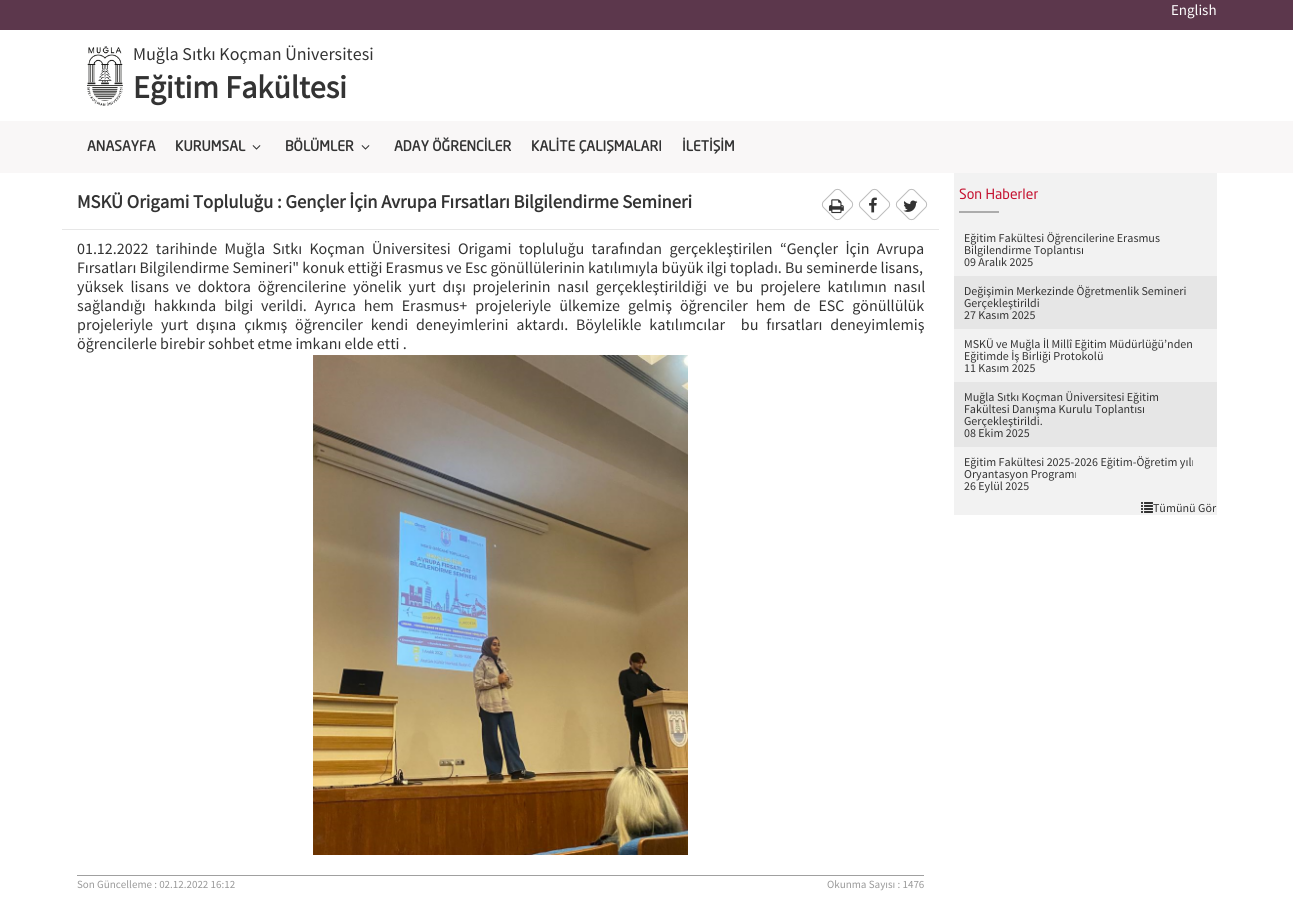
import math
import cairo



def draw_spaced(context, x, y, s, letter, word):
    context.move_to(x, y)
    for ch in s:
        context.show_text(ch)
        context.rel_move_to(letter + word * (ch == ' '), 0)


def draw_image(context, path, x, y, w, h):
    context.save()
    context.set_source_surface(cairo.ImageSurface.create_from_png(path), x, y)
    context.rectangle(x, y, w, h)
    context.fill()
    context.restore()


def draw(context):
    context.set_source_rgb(1, 1, 1)
    context.paint()
    context.set_source_rgb(92 / 255, 55 / 255, 76 / 255)
    context.rectangle(0, 0, 1293, 30)
    context.fill()
    draw_image(context, "images/1.png", 87, 46, 36, 60)
    context.set_source_rgb(249 / 255, 247 / 255, 247 / 255)
    context.rectangle(0, 121, 1293, 52)
    context.fill()
    draw_image(context, "images/2.png", 252, 145, 9, 5)
    draw_image(context, "images/2.png", 361, 145, 9, 5)
    context.set_source_rgb(231 / 255, 231 / 255, 231 / 255)
    context.rectangle(62, 229, 877, 1)
    context.fill()
    context.new_path()
    context.move_to(840.5, 190.5)
    context.line_to(851.5, 201.5)
    context.curve_to(853, 203, 853, 206, 851.5, 207.5)
    context.line_to(840.5, 218.5)
    context.curve_to(839, 220, 836, 220, 834.5, 218.5)
    context.line_to(823.5, 207.5)
    context.curve_to(822, 206, 822, 203, 823.5, 201.5)
    context.line_to(834.5, 190.5)
    context.curve_to(836, 189, 839, 189, 840.5, 190.5)
    context.close_path()
    context.set_source_rgb(187 / 255, 187 / 255, 187 / 255)
    context.set_line_width(1)
    context.stroke()
    draw_image(context, "images/3.png", 828, 199, 16, 15)
    context.new_path()
    context.move_to(877.5, 190.5)
    context.line_to(888.5, 201.5)
    context.curve_to(890, 203, 890, 206, 888.5, 207.5)
    context.line_to(877.5, 218.5)
    context.curve_to(876, 220, 873, 220, 871.5, 218.5)
    context.line_to(860.5, 207.5)
    context.curve_to(859, 206, 859, 203, 860.5, 201.5)
    context.line_to(871.5, 190.5)
    context.curve_to(873, 189, 876, 189, 877.5, 190.5)
    context.close_path()
    context.stroke()
    draw_image(context, "images/4.png", 869, 197, 8, 16)
    context.new_path()
    context.move_to(914.5, 190.5)
    context.line_to(925.5, 201.5)
    context.curve_to(927, 203, 927, 206, 925.5, 207.5)
    context.line_to(914.5, 218.5)
    context.curve_to(913, 220, 910, 220, 908.5, 218.5)
    context.line_to(897.5, 207.5)
    context.curve_to(896, 206, 896, 203, 897.5, 201.5)
    context.line_to(908.5, 190.5)
    context.curve_to(910, 189, 913, 189, 914.5, 190.5)
    context.close_path()
    context.stroke()
    draw_image(context, "images/5.png", 903, 200, 15, 12)
    draw_image(context, "images/6.png", 313, 355, 375, 500)
    context.set_source_rgb(160 / 255, 160 / 255, 160 / 255)
    context.rectangle(77, 875, 847, 1)
    context.fill()
    context.set_source_rgb(242 / 255, 242 / 255, 242 / 255)
    context.rectangle(954, 173, 263, 342)
    context.fill()
    context.set_source_rgb(172 / 255, 172 / 255, 172 / 255)
    context.rectangle(959, 211, 40, 2)
    context.fill()
    context.set_source_rgb(230 / 255, 230 / 255, 230 / 255)
    context.rectangle(954, 276, 263, 53)
    context.fill()
    context.rectangle(954, 382, 263, 65)
    context.fill()
    draw_image(context, "images/7.png", 1141, 502, 12, 11)
    context.select_font_face("Source Sans Pro")
    context.set_font_size(15)
    context.set_source_rgb(1, 1, 1)
    context.move_to(1171, 15)
    context.show_text("English")
    context.set_font_size(18)
    context.set_source_rgb(51 / 255, 51 / 255, 51 / 255)
    context.move_to(133, 60)
    context.show_text("Muğla Sıtkı Koçman Üniversitesi")
    context.select_font_face("Source Sans Pro", cairo.FontSlant.NORMAL, cairo.FontWeight.BOLD)
    context.set_font_size(32)
    context.move_to(133, 98)
    context.show_text("Eğitim Fakültesi")
    context.select_font_face("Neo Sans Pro", cairo.FontSlant.NORMAL, cairo.FontWeight.BOLD)
    context.set_font_size(14)
    context.move_to(87, 151)
    context.show_text("ANASAYFA")
    context.move_to(175, 151)
    context.show_text("KURUMSAL")
    context.move_to(285, 151)
    context.show_text("BÖLÜMLER")
    context.move_to(394, 151)
    context.show_text("ADAY ÖĞRENCİLER")
    context.move_to(531, 151)
    context.show_text("KALİTE ÇALIŞMALARI")
    context.move_to(682, 151)
    context.show_text("İLETİŞİM")
    context.select_font_face("Source Sans Pro", cairo.FontSlant.NORMAL, cairo.FontWeight.BOLD)
    context.set_font_size(18.7)
    context.move_to(77, 208)
    context.show_text("MSKÜ Origami Topluluğu : Gençler İçin Avrupa Fırsatları Bilgilendirme Semineri")
    context.select_font_face("Source Sans Pro")
    context.set_font_size(16)
    draw_spaced(context, 77, 254, "01.12.2022 tarihinde Muğla Sıtkı Koçman Üniversitesi Origami topluluğu tarafından gerçekleştirilen “Gençler İçin Avrupa", 0, 4.1)
    context.move_to(77, 273)
    context.show_text("Fırsatları Bilgilendirme Semineri\" konuk ettiği Erasmus ve Esc gönüllülerinin katılımıyla büyük ilgi topladı. Bu seminerde lisans,")
    draw_spaced(context, 77, 292, "yüksek lisans ve doktora öğrencilerine yönelik yurt dışı projelerinin nasıl gerçekleştirildiği ve bu projelere katılımın nasıl", 0, 3.5)
    draw_spaced(context, 77, 311, "sağlandığı hakkında bilgi verildi. Ayrıca hem Erasmus+ projeleriyle ülkemize gelmiş öğrenciler hem de ESC gönüllülük", 0, 4.75)
    draw_spaced(context, 77, 330, "projeleriyle yurt dışına çıkmış öğrenciler kendi deneyimlerini aktardı. Böylelikle katılımcılar  bu fırsatları deneyimlemiş", 0, 4.6)
    context.move_to(77, 349)
    context.show_text("öğrencilerle birebir sohbet etme imkanı elde etti .")
    context.set_font_size(11)
    context.set_source_rgb(153 / 255, 153 / 255, 153 / 255)
    context.move_to(77, 888)
    context.show_text("Son Güncelleme : 02.12.2022 16:12")
    context.move_to(827, 888)
    context.show_text("Okunma Sayısı : 1476")
    context.select_font_face("Neo Sans Pro")
    context.set_font_size(14)
    context.set_source_rgb(197 / 255, 18 / 255, 48 / 255)
    context.move_to(959, 199)
    context.show_text("Son Haberler")
    context.select_font_face("Source Sans Pro")
    context.set_font_size(12)
    context.set_source_rgb(51 / 255, 51 / 255, 51 / 255)
    context.move_to(964, 242)
    context.show_text("Eğitim Fakültesi Öğrencilerine Erasmus")
    context.move_to(964, 254)
    context.show_text("Bilgilendirme Toplantısı")
    context.move_to(964, 266)
    context.show_text("09 Aralık 2025")
    context.move_to(964, 295)
    context.show_text("Değişimin Merkezinde Öğretmenlik Semineri")
    context.move_to(964, 307)
    context.show_text("Gerçekleştirildi")
    context.move_to(964, 319)
    context.show_text("27 Kasım 2025")
    context.move_to(964, 348)
    context.show_text("MSKÜ ve Muğla İl Millî Eğitim Müdürlüğü’nden")
    context.move_to(964, 360)
    context.show_text("Eğitimde İş Birliği Protokolü")
    context.move_to(964, 372)
    context.show_text("11 Kasım 2025")
    context.move_to(964, 401)
    context.show_text("Muğla Sıtkı Koçman Üniversitesi Eğitim")
    context.move_to(964, 413)
    context.show_text("Fakültesi Danışma Kurulu Toplantısı")
    context.move_to(964, 425)
    context.show_text("Gerçekleştirildi.")
    context.move_to(964, 437)
    context.show_text("08 Ekim 2025")
    context.move_to(964, 466)
    context.show_text("Eğitim Fakültesi 2025-2026 Eğitim-Öğretim yılı")
    context.move_to(964, 478)
    context.show_text("Oryantasyon Programı")
    context.move_to(964, 490)
    context.show_text("26 Eylül 2025")
    context.move_to(1153, 512)
    context.show_text("Tümünü Gör")


surface = cairo.ImageSurface(cairo.Format.RGB24, 1293, 912)
context = cairo.Context(surface)
options = cairo.FontOptions()
options.set_hint_metrics(cairo.HintMetrics.OFF)
options.set_hint_style(cairo.HintStyle.NONE)
context.set_font_options(options)
context.set_miter_limit(4)
draw(context)
surface.write_to_png("out.png")
